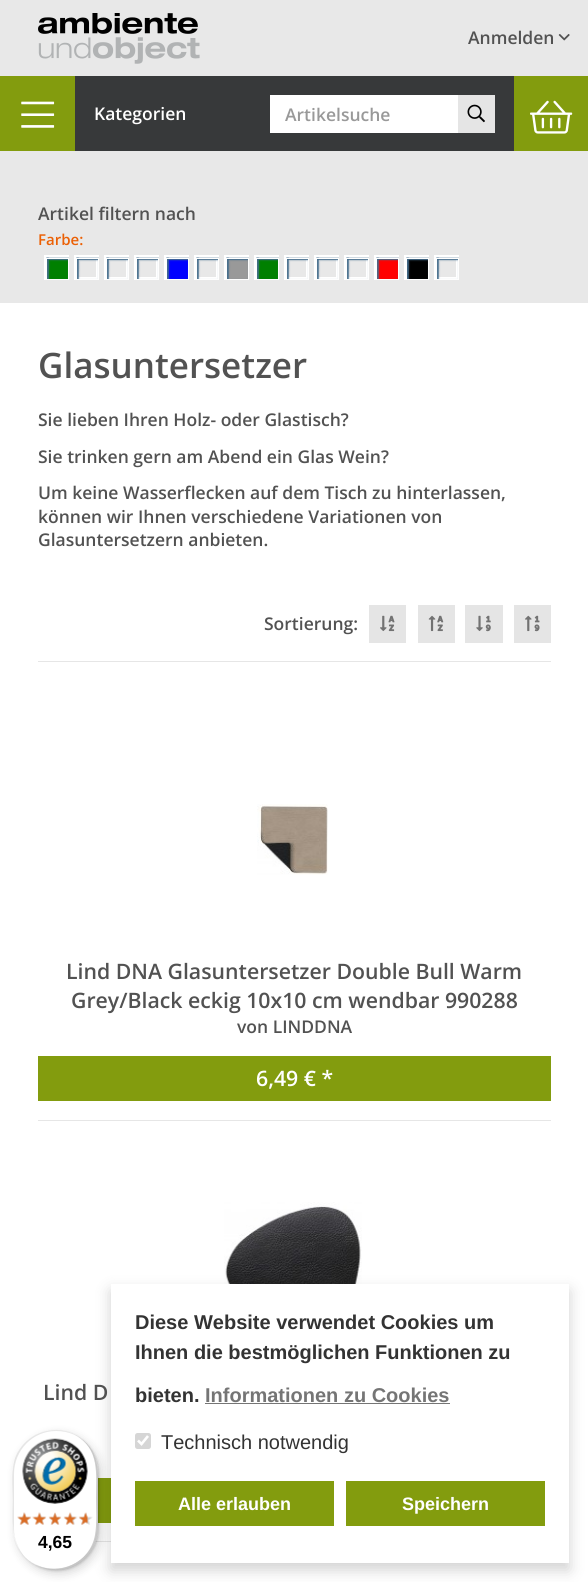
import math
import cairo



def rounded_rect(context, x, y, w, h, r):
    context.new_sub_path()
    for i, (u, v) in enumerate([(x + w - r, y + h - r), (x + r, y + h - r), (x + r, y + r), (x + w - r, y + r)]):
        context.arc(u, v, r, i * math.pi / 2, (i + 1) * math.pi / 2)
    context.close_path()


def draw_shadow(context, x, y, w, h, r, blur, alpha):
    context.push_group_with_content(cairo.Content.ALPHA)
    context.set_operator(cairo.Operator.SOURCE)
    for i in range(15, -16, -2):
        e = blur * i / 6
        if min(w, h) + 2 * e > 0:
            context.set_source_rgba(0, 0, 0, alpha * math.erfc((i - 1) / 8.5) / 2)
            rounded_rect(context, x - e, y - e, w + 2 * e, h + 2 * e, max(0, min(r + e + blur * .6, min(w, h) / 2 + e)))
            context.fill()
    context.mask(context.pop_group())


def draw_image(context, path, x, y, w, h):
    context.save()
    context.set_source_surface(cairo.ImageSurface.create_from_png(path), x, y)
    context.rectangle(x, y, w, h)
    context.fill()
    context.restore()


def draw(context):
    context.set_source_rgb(232 / 255, 232 / 255, 232 / 255)
    context.paint()
    draw_image(context, "images/1.png", 38, 13, 162, 51)
    draw_image(context, "images/2.png", 558, 34, 12, 7)
    context.set_source_rgb(55 / 255, 57 / 255, 58 / 255)
    context.rectangle(75, 76, 439, 75)
    context.fill()
    context.set_source_rgb(131 / 255, 156 / 255, 14 / 255)
    context.rectangle(0, 76, 75, 75)
    context.fill()
    draw_image(context, "images/3.png", 21, 101, 34, 27)
    context.set_source_rgb(1, 1, 1)
    context.rectangle(270, 95, 188, 38)
    context.fill()
    context.set_source_rgb(229 / 255, 229 / 255, 229 / 255)
    context.rectangle(458, 95, 37, 38)
    context.fill()
    draw_image(context, "images/4.png", 467, 104, 18, 19)
    context.set_source_rgb(131 / 255, 156 / 255, 14 / 255)
    context.rectangle(514, 76, 74, 75)
    context.fill()
    draw_image(context, "images/5.png", 530, 100, 43, 34)
    context.rectangle(45.5, 256.5, 22, 22)
    context.set_source_rgb(1, 1, 1)
    context.set_line_width(3)
    context.stroke()
    context.set_source_rgb(0, 128 / 255, 0)
    context.rectangle(47, 259, 21, 20)
    context.fill()
    draw_image(context, "images/6.png", 46, 257, 23, 22)
    context.rectangle(46.5, 258.5, 22, 21)
    context.set_source_rgb(254 / 255, 254 / 255, 254 / 255)
    context.set_line_width(1)
    context.stroke()
    context.rectangle(75.5, 256.5, 22, 22)
    context.set_source_rgb(1, 1, 1)
    context.set_line_width(3)
    context.stroke()
    draw_image(context, "images/7.png", 76, 257, 23, 22)
    context.rectangle(76.5, 258.5, 22, 21)
    context.set_source_rgb(254 / 255, 254 / 255, 254 / 255)
    context.set_line_width(1)
    context.stroke()
    context.rectangle(105.5, 256.5, 22, 22)
    context.set_source_rgb(1, 1, 1)
    context.set_line_width(3)
    context.stroke()
    draw_image(context, "images/8.png", 106, 257, 23, 22)
    context.rectangle(106.5, 258.5, 22, 21)
    context.set_source_rgb(254 / 255, 254 / 255, 254 / 255)
    context.set_line_width(1)
    context.stroke()
    context.rectangle(135.5, 256.5, 22, 22)
    context.set_source_rgb(1, 1, 1)
    context.set_line_width(3)
    context.stroke()
    draw_image(context, "images/7.png", 136, 257, 23, 22)
    context.rectangle(136.5, 258.5, 22, 21)
    context.set_source_rgb(254 / 255, 254 / 255, 254 / 255)
    context.set_line_width(1)
    context.stroke()
    context.rectangle(165.5, 256.5, 22, 22)
    context.set_source_rgb(1, 1, 1)
    context.set_line_width(3)
    context.stroke()
    context.set_source_rgb(0, 0, 1)
    context.rectangle(167, 259, 21, 20)
    context.fill()
    draw_image(context, "images/9.png", 166, 257, 23, 22)
    context.rectangle(166.5, 258.5, 22, 21)
    context.set_source_rgb(254 / 255, 254 / 255, 254 / 255)
    context.set_line_width(1)
    context.stroke()
    context.rectangle(195.5, 256.5, 22, 22)
    context.set_source_rgb(1, 1, 1)
    context.set_line_width(3)
    context.stroke()
    draw_image(context, "images/7.png", 196, 257, 23, 22)
    context.rectangle(196.5, 258.5, 22, 21)
    context.set_source_rgb(254 / 255, 254 / 255, 254 / 255)
    context.set_line_width(1)
    context.stroke()
    context.rectangle(225.5, 256.5, 22, 22)
    context.set_source_rgb(1, 1, 1)
    context.set_line_width(3)
    context.stroke()
    context.set_source_rgb(153 / 255, 153 / 255, 153 / 255)
    context.rectangle(227, 259, 21, 20)
    context.fill()
    draw_image(context, "images/10.png", 226, 257, 23, 22)
    context.rectangle(226.5, 258.5, 22, 21)
    context.set_source_rgb(254 / 255, 254 / 255, 254 / 255)
    context.set_line_width(1)
    context.stroke()
    context.rectangle(255.5, 256.5, 22, 22)
    context.set_source_rgb(1, 1, 1)
    context.set_line_width(3)
    context.stroke()
    context.set_source_rgb(0, 128 / 255, 0)
    context.rectangle(257, 259, 21, 20)
    context.fill()
    draw_image(context, "images/6.png", 256, 257, 23, 22)
    context.rectangle(256.5, 258.5, 22, 21)
    context.set_source_rgb(254 / 255, 254 / 255, 254 / 255)
    context.set_line_width(1)
    context.stroke()
    context.rectangle(285.5, 256.5, 22, 22)
    context.set_source_rgb(1, 1, 1)
    context.set_line_width(3)
    context.stroke()
    draw_image(context, "images/7.png", 286, 257, 23, 22)
    context.rectangle(286.5, 258.5, 22, 21)
    context.set_source_rgb(254 / 255, 254 / 255, 254 / 255)
    context.set_line_width(1)
    context.stroke()
    context.rectangle(315.5, 256.5, 22, 22)
    context.set_source_rgb(1, 1, 1)
    context.set_line_width(3)
    context.stroke()
    draw_image(context, "images/7.png", 316, 257, 23, 22)
    context.rectangle(316.5, 258.5, 22, 21)
    context.set_source_rgb(254 / 255, 254 / 255, 254 / 255)
    context.set_line_width(1)
    context.stroke()
    context.rectangle(345.5, 256.5, 22, 22)
    context.set_source_rgb(1, 1, 1)
    context.set_line_width(3)
    context.stroke()
    draw_image(context, "images/7.png", 346, 257, 23, 22)
    context.rectangle(346.5, 258.5, 22, 21)
    context.set_source_rgb(254 / 255, 254 / 255, 254 / 255)
    context.set_line_width(1)
    context.stroke()
    context.rectangle(375.5, 256.5, 22, 22)
    context.set_source_rgb(1, 1, 1)
    context.set_line_width(3)
    context.stroke()
    context.set_source_rgb(1, 0, 0)
    context.rectangle(377, 259, 21, 20)
    context.fill()
    draw_image(context, "images/11.png", 376, 257, 23, 22)
    context.rectangle(376.5, 258.5, 22, 21)
    context.set_source_rgb(254 / 255, 254 / 255, 254 / 255)
    context.set_line_width(1)
    context.stroke()
    context.rectangle(405.5, 256.5, 22, 22)
    context.set_source_rgb(1, 1, 1)
    context.set_line_width(3)
    context.stroke()
    context.set_source_rgb(0, 0, 0)
    context.rectangle(407, 259, 21, 20)
    context.fill()
    draw_image(context, "images/12.png", 406, 257, 23, 22)
    context.rectangle(406.5, 258.5, 22, 21)
    context.set_source_rgb(254 / 255, 254 / 255, 254 / 255)
    context.set_line_width(1)
    context.stroke()
    context.rectangle(435.5, 256.5, 22, 22)
    context.set_source_rgb(1, 1, 1)
    context.set_line_width(3)
    context.stroke()
    draw_image(context, "images/7.png", 436, 257, 23, 22)
    context.rectangle(436.5, 258.5, 22, 21)
    context.set_source_rgb(254 / 255, 254 / 255, 254 / 255)
    context.set_line_width(1)
    context.stroke()
    context.set_source_rgb(1, 1, 1)
    context.rectangle(0, 303, 588, 1279)
    context.fill()
    context.set_source_rgb(230 / 255, 230 / 255, 230 / 255)
    context.rectangle(38, 661, 513, 1)
    context.fill()
    context.set_source_rgb(229 / 255, 229 / 255, 229 / 255)
    context.rectangle(369, 605, 37, 38)
    context.fill()
    draw_image(context, "images/13.png", 380, 615, 15, 17)
    context.rectangle(418, 605, 37, 38)
    context.fill()
    draw_image(context, "images/14.png", 428, 615, 16, 17)
    context.rectangle(465, 605, 38, 38)
    context.fill()
    draw_image(context, "images/15.png", 476, 615, 15, 17)
    context.rectangle(514, 605, 37, 38)
    context.fill()
    draw_image(context, "images/16.png", 525, 615, 15, 17)
    context.set_source_rgb(230 / 255, 230 / 255, 230 / 255)
    context.rectangle(38, 1120, 513, 1)
    context.fill()
    draw_image(context, "images/17.png", 257, 804, 71, 71)
    context.set_source_rgb(131 / 255, 156 / 255, 14 / 255)
    context.rectangle(38, 1056, 513, 45)
    context.fill()
    context.set_source_rgb(230 / 255, 230 / 255, 230 / 255)
    context.rectangle(95, 1541, 16, 1)
    context.fill()
    draw_image(context, "images/18.png", 224, 1202, 138, 82)
    context.set_source_rgb(131 / 255, 156 / 255, 14 / 255)
    context.rectangle(98, 1478, 13, 45)
    context.fill()
    context.set_source_rgb(0, 0, 0)
    draw_shadow(context, 111, 1291, 458, 279, 0, 7.5, 0.18)
    context.set_source_rgb(1, 1, 1)
    context.rectangle(111, 1284, 458, 279)
    context.fill()
    context.set_source_rgb(117 / 255, 117 / 255, 117 / 255)
    context.rectangle(205, 1403, 245, 1)
    context.fill()
    context.set_source_rgb(214 / 255, 214 / 255, 214 / 255)
    rounded_rect(context, 135, 1433, 16, 16, 2.5)
    context.fill()
    context.new_path()
    context.move_to(138, 1440.5)
    context.line_to(141.5, 1444)
    context.line_to(148, 1436)
    context.set_source_rgb(1, 1, 1)
    context.set_line_width(2.6)
    context.stroke()
    context.set_source_rgb(131 / 255, 156 / 255, 14 / 255)
    context.rectangle(135, 1481, 199, 45)
    context.fill()
    context.rectangle(346, 1481, 199, 45)
    context.fill()
    context.set_source_rgb(0, 0, 0)
    draw_shadow(context, 16, 1434, 85, 140, 42.5, 5, 0.15)
    draw_shadow(context, 14, 1431, 85, 140, 42.5, 1, 0.15)
    context.set_source_rgb(1, 1, 1)
    rounded_rect(context, 13, 1430, 85, 140, 42.5)
    context.fill()
    context.set_source_rgba(0, 0, 0, 0.1)
    context.new_path()
    context.move_to(56, 1431)
    context.curve_to(69, 1431, 80, 1436, 88, 1445)
    context.curve_to(67, 1421, 29, 1427, 16, 1456)
    context.curve_to(11, 1468, 13, 1486, 13, 1500)
    context.curve_to(13, 1519, 10, 1540, 24, 1556)
    context.curve_to(18, 1548, 14, 1539, 14, 1529)
    context.line_to(14, 1474)
    context.curve_to(14, 1450, 33, 1431, 56, 1431)
    context.close_path()
    context.fill()
    context.set_source_rgba(0, 0, 0, 0.2)
    context.new_path()
    context.move_to(34, 1564)
    context.curve_to(59, 1579, 91, 1565, 97, 1536)
    context.curve_to(99, 1526, 98, 1511, 98, 1500)
    context.curve_to(98, 1474, 102, 1449, 75, 1435)
    context.curve_to(100, 1449, 96, 1474, 96, 1498)
    context.curve_to(96, 1509, 97, 1524, 95, 1535)
    context.curve_to(90, 1563, 59, 1577, 34, 1564)
    context.close_path()
    context.fill()
    context.set_source_rgba(50 / 255, 50 / 255, 50 / 255, 0.2)
    context.new_path()
    context.move_to(27, 1559)
    context.curve_to(35, 1566, 45, 1570, 56, 1570)
    context.curve_to(79, 1570, 98, 1551, 98, 1528)
    context.line_to(98, 1472)
    context.curve_to(98, 1460, 92, 1448, 83, 1440)
    context.curve_to(101, 1456, 97, 1478, 97, 1500)
    context.curve_to(97, 1513, 99, 1531, 94, 1543)
    context.curve_to(82, 1569, 49, 1577, 27, 1559)
    context.close_path()
    context.fill()
    context.set_source_rgba(1, 1, 1, 0.3)
    context.new_path()
    context.move_to(27, 1559)
    context.curve_to(35, 1566, 45, 1570, 56, 1570)
    context.curve_to(79, 1570, 98, 1551, 98, 1528)
    context.line_to(98, 1472)
    context.curve_to(98, 1460, 92, 1448, 83, 1440)
    context.curve_to(101, 1456, 97, 1478, 97, 1500)
    context.curve_to(97, 1513, 99, 1531, 94, 1543)
    context.curve_to(82, 1569, 49, 1577, 27, 1559)
    context.close_path()
    context.fill()
    draw_image(context, "images/19.png", 22, 1438, 66, 66)
    draw_image(context, "images/20.png", 17, 1512, 14, 13)
    draw_image(context, "images/21.png", 34, 1512, 12, 13)
    draw_image(context, "images/22.png", 49, 1513, 12, 12)
    draw_image(context, "images/23.png", 64, 1512, 14, 13)
    draw_image(context, "images/24.png", 79, 1513, 14, 12)
    draw_image(context, "images/25.png", 17, 1512, 15, 13)
    draw_image(context, "images/26.png", 32, 1512, 15, 13)
    draw_image(context, "images/27.png", 48, 1512, 14, 13)
    draw_image(context, "images/28.png", 63, 1512, 14, 13)
    draw_image(context, "images/29.png", 78, 1512, 10, 13)
    context.select_font_face("Open Sans SemiBold")
    context.set_font_size(17.5)
    context.set_source_rgb(82 / 255, 82 / 255, 82 / 255)
    context.move_to(468, 44)
    context.show_text("Anmelden")
    context.set_source_rgb(1, 1, 1)
    context.move_to(94, 120)
    context.show_text("Kategorien")
    context.set_source_rgb(153 / 255, 153 / 255, 153 / 255)
    context.move_to(285, 121)
    context.show_text("Artikelsuche")
    context.set_source_rgb(82 / 255, 82 / 255, 82 / 255)
    context.move_to(38, 220)
    context.show_text("Artikel filtern nach")
    context.set_font_size(15)
    context.set_source_rgb(235 / 255, 96 / 255, 5 / 255)
    context.move_to(38, 245)
    context.show_text("Farbe:")
    context.set_font_size(35)
    context.set_source_rgb(82 / 255, 82 / 255, 82 / 255)
    context.move_to(38, 378)
    context.show_text("Glasuntersetzer")
    context.set_font_size(17.5)
    context.move_to(38, 426)
    context.show_text("Sie lieben Ihren Holz- oder Glastisch?")
    context.move_to(38, 463)
    context.show_text("Sie trinken gern am Abend ein Glas Wein?")
    context.move_to(38, 499)
    context.show_text("Um keine Wasserflecken auf dem Tisch zu hinterlassen,")
    context.move_to(38, 523)
    context.show_text("können wir Ihnen verschiedene Variationen von")
    context.move_to(38, 546)
    context.show_text("Glasuntersetzern anbieten.")
    context.move_to(264, 630)
    context.show_text("Sortierung:")
    context.set_font_size(21.25)
    context.move_to(66, 979)
    context.show_text("Lind DNA Glasuntersetzer Double Bull Warm")
    context.move_to(71, 1008)
    context.show_text("Grey/Black eckig 10x10 cm wendbar 990288")
    context.set_font_size(17.5)
    context.move_to(237, 1033)
    context.show_text("von LINDDNA")
    context.set_font_size(21.25)
    context.set_source_rgb(1, 1, 1)
    context.move_to(256, 1086)
    context.show_text("6,49 € *")
    context.set_source_rgb(82 / 255, 82 / 255, 82 / 255)
    context.move_to(43, 1400)
    context.show_text("Lind D")
    context.select_font_face("Liberation Sans", cairo.FontSlant.NORMAL, cairo.FontWeight.BOLD)
    context.set_font_size(20)
    context.set_source_rgb(51 / 255, 51 / 255, 51 / 255)
    context.move_to(135, 1329)
    context.show_text("Diese Website verwendet Cookies um")
    context.move_to(135, 1359)
    context.show_text("Ihnen die bestmöglichen Funktionen zu")
    context.move_to(135, 1402)
    context.show_text("bieten.")
    context.set_source_rgb(117 / 255, 117 / 255, 117 / 255)
    context.move_to(205, 1402)
    context.show_text("Informationen zu Cookies")
    context.select_font_face("Liberation Sans")
    context.set_source_rgb(51 / 255, 51 / 255, 51 / 255)
    context.move_to(161, 1449)
    context.show_text("Technisch notwendig")
    context.select_font_face("Liberation Sans", cairo.FontSlant.NORMAL, cairo.FontWeight.BOLD)
    context.set_font_size(18)
    context.set_source_rgb(1, 1, 1)
    context.move_to(178, 1510)
    context.show_text("Alle erlauben")
    context.move_to(402, 1510)
    context.show_text("Speichern")
    context.set_font_size(17.5)
    context.set_source_rgb(0, 0, 0)
    context.move_to(38, 1548)
    context.show_text("4,65")


surface = cairo.ImageSurface(cairo.Format.RGB24, 588, 1582)
context = cairo.Context(surface)
options = cairo.FontOptions()
options.set_hint_metrics(cairo.HintMetrics.OFF)
options.set_hint_style(cairo.HintStyle.NONE)
context.set_font_options(options)
context.set_miter_limit(4)
draw(context)
surface.write_to_png("out.png")
